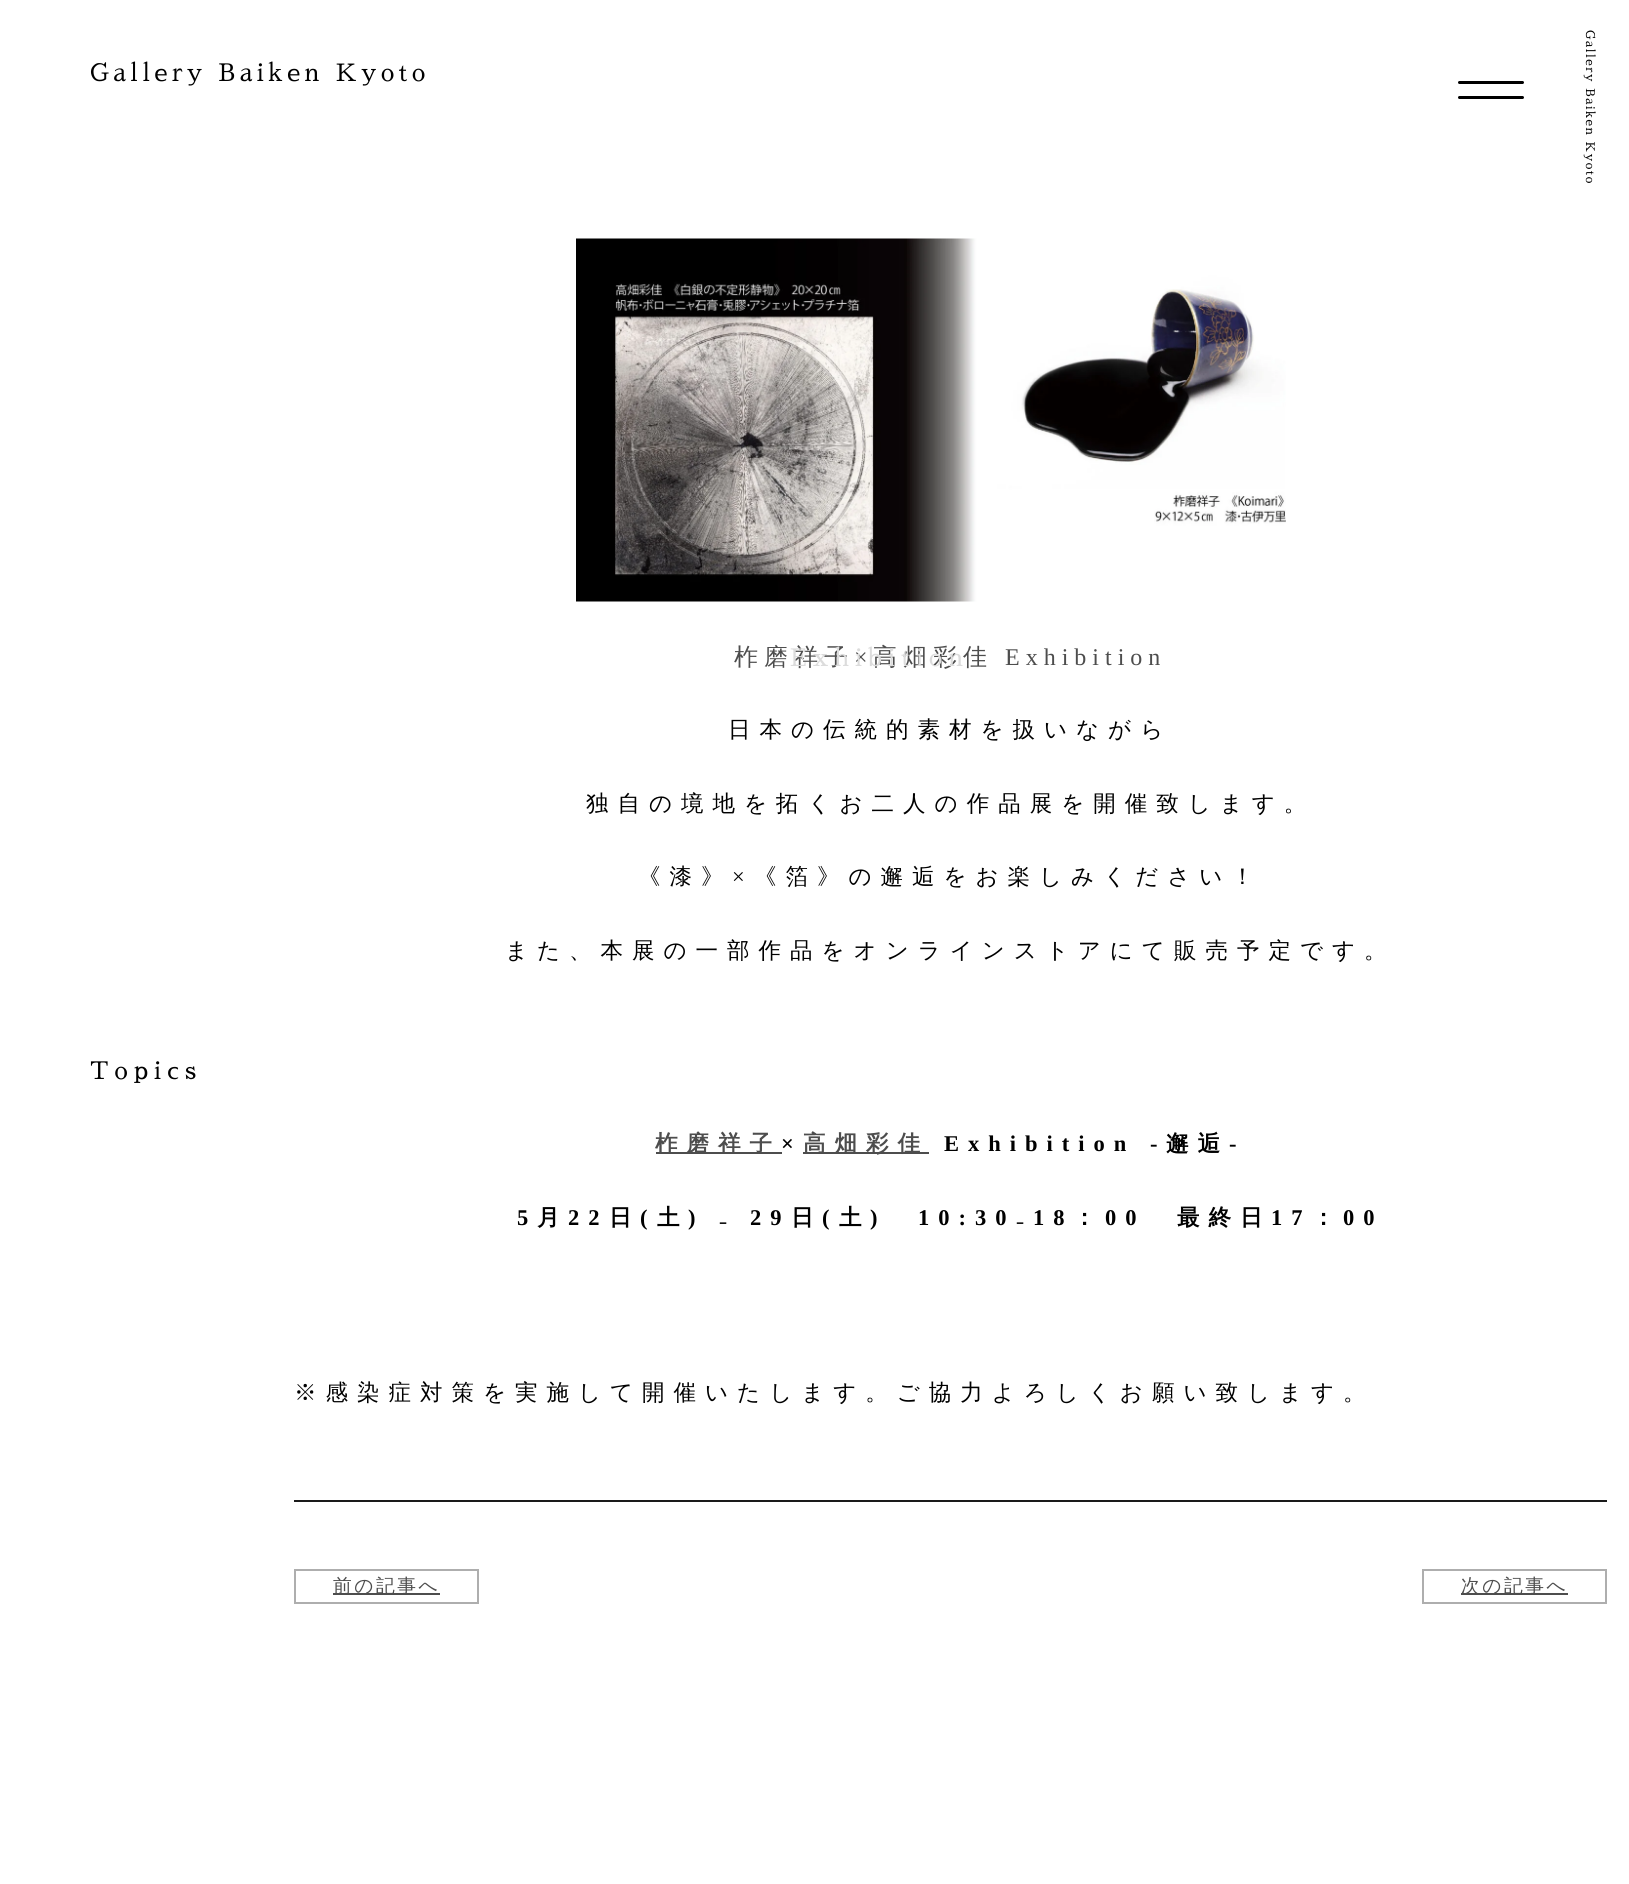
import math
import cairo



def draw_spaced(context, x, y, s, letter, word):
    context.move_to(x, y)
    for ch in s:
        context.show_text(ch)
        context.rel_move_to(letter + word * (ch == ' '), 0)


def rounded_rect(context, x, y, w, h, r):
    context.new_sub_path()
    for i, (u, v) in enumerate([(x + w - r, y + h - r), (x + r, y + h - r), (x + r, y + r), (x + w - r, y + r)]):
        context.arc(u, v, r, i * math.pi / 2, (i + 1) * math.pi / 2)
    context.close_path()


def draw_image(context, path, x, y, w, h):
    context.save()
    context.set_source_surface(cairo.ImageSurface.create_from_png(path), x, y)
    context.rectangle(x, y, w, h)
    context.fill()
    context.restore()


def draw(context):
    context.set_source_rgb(1, 1, 1)
    context.paint()
    context.set_source_rgb(0, 0, 0)
    rounded_rect(context, 1458, 81, 66, 3, 1.5)
    context.fill()
    rounded_rect(context, 1458, 96, 66, 3, 1.5)
    context.fill()
    draw_image(context, "images/1.png", 576, 238, 710, 364)
    context.set_source_rgb(26 / 255, 26 / 255, 26 / 255)
    context.rectangle(294, 1500, 1313, 2)
    context.fill()
    context.set_source_rgb(77 / 255, 77 / 255, 77 / 255)
    context.rectangle(656, 1152, 126, 2)
    context.fill()
    context.rectangle(803, 1152, 126, 2)
    context.fill()
    context.rectangle(295, 1570, 183, 33)
    context.set_source_rgb(174 / 255, 174 / 255, 174 / 255)
    context.stroke()
    context.set_source_rgb(77 / 255, 77 / 255, 77 / 255)
    context.rectangle(333, 1593, 107, 2)
    context.fill()
    context.rectangle(1423, 1570, 183, 33)
    context.set_source_rgb(174 / 255, 174 / 255, 174 / 255)
    context.stroke()
    context.set_source_rgb(77 / 255, 77 / 255, 77 / 255)
    context.rectangle(1461, 1593, 107, 2)
    context.fill()
    context.select_font_face("Sawarabi Mincho")
    context.set_font_size(24)
    context.set_source_rgb(0, 0, 0)
    draw_spaced(context, 90, 81, "Gallery Baiken Kyoto", 4.5, 0)
    context.set_font_size(12)
    context.save()
    context.translate(1586, 30)
    context.rotate(90 * math.pi / 180)
    draw_spaced(context, 0, 0, "Gallery Baiken Kyoto", 1.5, 0)
    context.restore()
    context.set_font_size(24)
    draw_spaced(context, 90, 1079, "Topics", 6, 0)
    context.select_font_face("WenQuanYi Zen Hei Medium")
    context.set_source_rgb(77 / 255, 77 / 255, 77 / 255)
    draw_spaced(context, 734, 665, "柞磨祥子", 6, 0)
    context.select_font_face("Liberation Serif")
    draw_spaced(context, 854, 665, "×", 6, 0)
    context.select_font_face("WenQuanYi Zen Hei Medium")
    draw_spaced(context, 873, 665, "高畑彩佳", 6, 0)
    context.select_font_face("Sawarabi Mincho")
    context.set_source_rgb(220 / 255, 220 / 255, 220 / 255)
    draw_spaced(context, 790, 666, "Exhibition", 6, 0)
    context.select_font_face("Liberation Serif")
    context.set_source_rgb(77 / 255, 77 / 255, 77 / 255)
    draw_spaced(context, 1005, 665, "Exhibition", 6, 0)
    context.select_font_face("WenQuanYi Zen Hei Medium")
    context.set_font_size(22.5)
    context.set_source_rgb(0, 0, 0)
    draw_spaced(context, 728, 737, "日本の伝統的素材を扱いながら", 9, 0)
    draw_spaced(context, 586, 811, "独自の境地を拓くお二人の作品展を開催致します。", 9, 0)
    draw_spaced(context, 638, 884, "《漆》", 9, 0)
    context.select_font_face("Liberation Serif")
    draw_spaced(context, 732, 884, "×", 9, 0)
    context.select_font_face("WenQuanYi Zen Hei Medium")
    draw_spaced(context, 754, 884, "《箔》の邂逅をお楽しみください！", 9, 0)
    draw_spaced(context, 505, 958, "また、本展の一部作品をオンラインストアにて販売予定です。", 9, 0)
    context.select_font_face("WenQuanYi Zen Hei", cairo.FontSlant.NORMAL, cairo.FontWeight.BOLD)
    context.set_source_rgb(77 / 255, 77 / 255, 77 / 255)
    draw_spaced(context, 655, 1151, "柞磨祥子", 9, 0)
    context.select_font_face("Liberation Serif", cairo.FontSlant.NORMAL, cairo.FontWeight.BOLD)
    context.set_source_rgb(0, 0, 0)
    draw_spaced(context, 781, 1151, "×", 9, 0)
    context.select_font_face("WenQuanYi Zen Hei", cairo.FontSlant.NORMAL, cairo.FontWeight.BOLD)
    context.set_source_rgb(77 / 255, 77 / 255, 77 / 255)
    draw_spaced(context, 803, 1151, "高畑彩佳", 9, 0)
    context.select_font_face("Liberation Serif", cairo.FontSlant.NORMAL, cairo.FontWeight.BOLD)
    context.set_source_rgb(0, 0, 0)
    draw_spaced(context, 944, 1151, "Exhibition -", 9, 0)
    context.select_font_face("WenQuanYi Zen Hei", cairo.FontSlant.NORMAL, cairo.FontWeight.BOLD)
    draw_spaced(context, 1166, 1151, "邂逅", 9, 0)
    context.select_font_face("Liberation Serif", cairo.FontSlant.NORMAL, cairo.FontWeight.BOLD)
    draw_spaced(context, 1229, 1151, "-", 9, 0)
    draw_spaced(context, 517, 1225, "5", 9, 0)
    context.select_font_face("WenQuanYi Zen Hei", cairo.FontSlant.NORMAL, cairo.FontWeight.BOLD)
    draw_spaced(context, 537, 1225, "月", 9, 0)
    context.select_font_face("Liberation Serif", cairo.FontSlant.NORMAL, cairo.FontWeight.BOLD)
    draw_spaced(context, 568, 1225, "22", 9, 0)
    context.select_font_face("WenQuanYi Zen Hei", cairo.FontSlant.NORMAL, cairo.FontWeight.BOLD)
    draw_spaced(context, 609, 1225, "日", 9, 0)
    context.select_font_face("Liberation Serif", cairo.FontSlant.NORMAL, cairo.FontWeight.BOLD)
    draw_spaced(context, 640, 1225, "(", 9, 0)
    context.select_font_face("WenQuanYi Zen Hei", cairo.FontSlant.NORMAL, cairo.FontWeight.BOLD)
    draw_spaced(context, 657, 1225, "土", 9, 0)
    context.select_font_face("Liberation Serif", cairo.FontSlant.NORMAL, cairo.FontWeight.BOLD)
    draw_spaced(context, 688, 1225, ")", 9, 0)
    context.select_font_face("Noto Sans", cairo.FontSlant.NORMAL, cairo.FontWeight.BOLD)
    draw_spaced(context, 719, 1225, "₋", 9, 0)
    context.select_font_face("Liberation Serif", cairo.FontSlant.NORMAL, cairo.FontWeight.BOLD)
    draw_spaced(context, 750, 1225, "29", 9, 0)
    context.select_font_face("WenQuanYi Zen Hei", cairo.FontSlant.NORMAL, cairo.FontWeight.BOLD)
    draw_spaced(context, 791, 1225, "日", 9, 0)
    context.select_font_face("Liberation Serif", cairo.FontSlant.NORMAL, cairo.FontWeight.BOLD)
    draw_spaced(context, 822, 1225, "(", 9, 0)
    context.select_font_face("WenQuanYi Zen Hei", cairo.FontSlant.NORMAL, cairo.FontWeight.BOLD)
    draw_spaced(context, 839, 1225, "土", 9, 0)
    context.select_font_face("Liberation Serif", cairo.FontSlant.NORMAL, cairo.FontWeight.BOLD)
    draw_spaced(context, 870, 1225, ")", 9, 0)
    draw_spaced(context, 918, 1225, "10:30", 9, 0)
    context.select_font_face("Noto Sans", cairo.FontSlant.NORMAL, cairo.FontWeight.BOLD)
    draw_spaced(context, 1016, 1225, "₋", 9, 0)
    context.select_font_face("Liberation Serif", cairo.FontSlant.NORMAL, cairo.FontWeight.BOLD)
    draw_spaced(context, 1033, 1225, "18", 9, 0)
    context.select_font_face("WenQuanYi Zen Hei", cairo.FontSlant.NORMAL, cairo.FontWeight.BOLD)
    draw_spaced(context, 1073, 1225, "：", 9, 0)
    context.select_font_face("Liberation Serif", cairo.FontSlant.NORMAL, cairo.FontWeight.BOLD)
    draw_spaced(context, 1105, 1225, "00", 9, 0)
    context.select_font_face("WenQuanYi Zen Hei", cairo.FontSlant.NORMAL, cairo.FontWeight.BOLD)
    draw_spaced(context, 1177, 1225, "最終日", 9, 0)
    context.select_font_face("Liberation Serif", cairo.FontSlant.NORMAL, cairo.FontWeight.BOLD)
    draw_spaced(context, 1271, 1225, "17", 9, 0)
    context.select_font_face("WenQuanYi Zen Hei", cairo.FontSlant.NORMAL, cairo.FontWeight.BOLD)
    draw_spaced(context, 1312, 1225, "：", 9, 0)
    context.select_font_face("Liberation Serif", cairo.FontSlant.NORMAL, cairo.FontWeight.BOLD)
    draw_spaced(context, 1343, 1225, "00", 9, 0)
    context.select_font_face("WenQuanYi Zen Hei Medium")
    draw_spaced(context, 294, 1400, "※感染症対策を実施して開催いたします。ご協力よろしくお願い致します。", 9, 0)
    context.set_font_size(18.75)
    context.set_source_rgb(77 / 255, 77 / 255, 77 / 255)
    draw_spaced(context, 333, 1592, "前の記事へ", 2.5, 0)
    draw_spaced(context, 1461, 1592, "次の記事へ", 2.5, 0)


surface = cairo.ImageSurface(cairo.Format.RGB24, 1629, 1884)
context = cairo.Context(surface)
options = cairo.FontOptions()
options.set_hint_metrics(cairo.HintMetrics.OFF)
options.set_hint_style(cairo.HintStyle.NONE)
context.set_font_options(options)
context.set_miter_limit(4)
draw(context)
surface.write_to_png("out.png")
